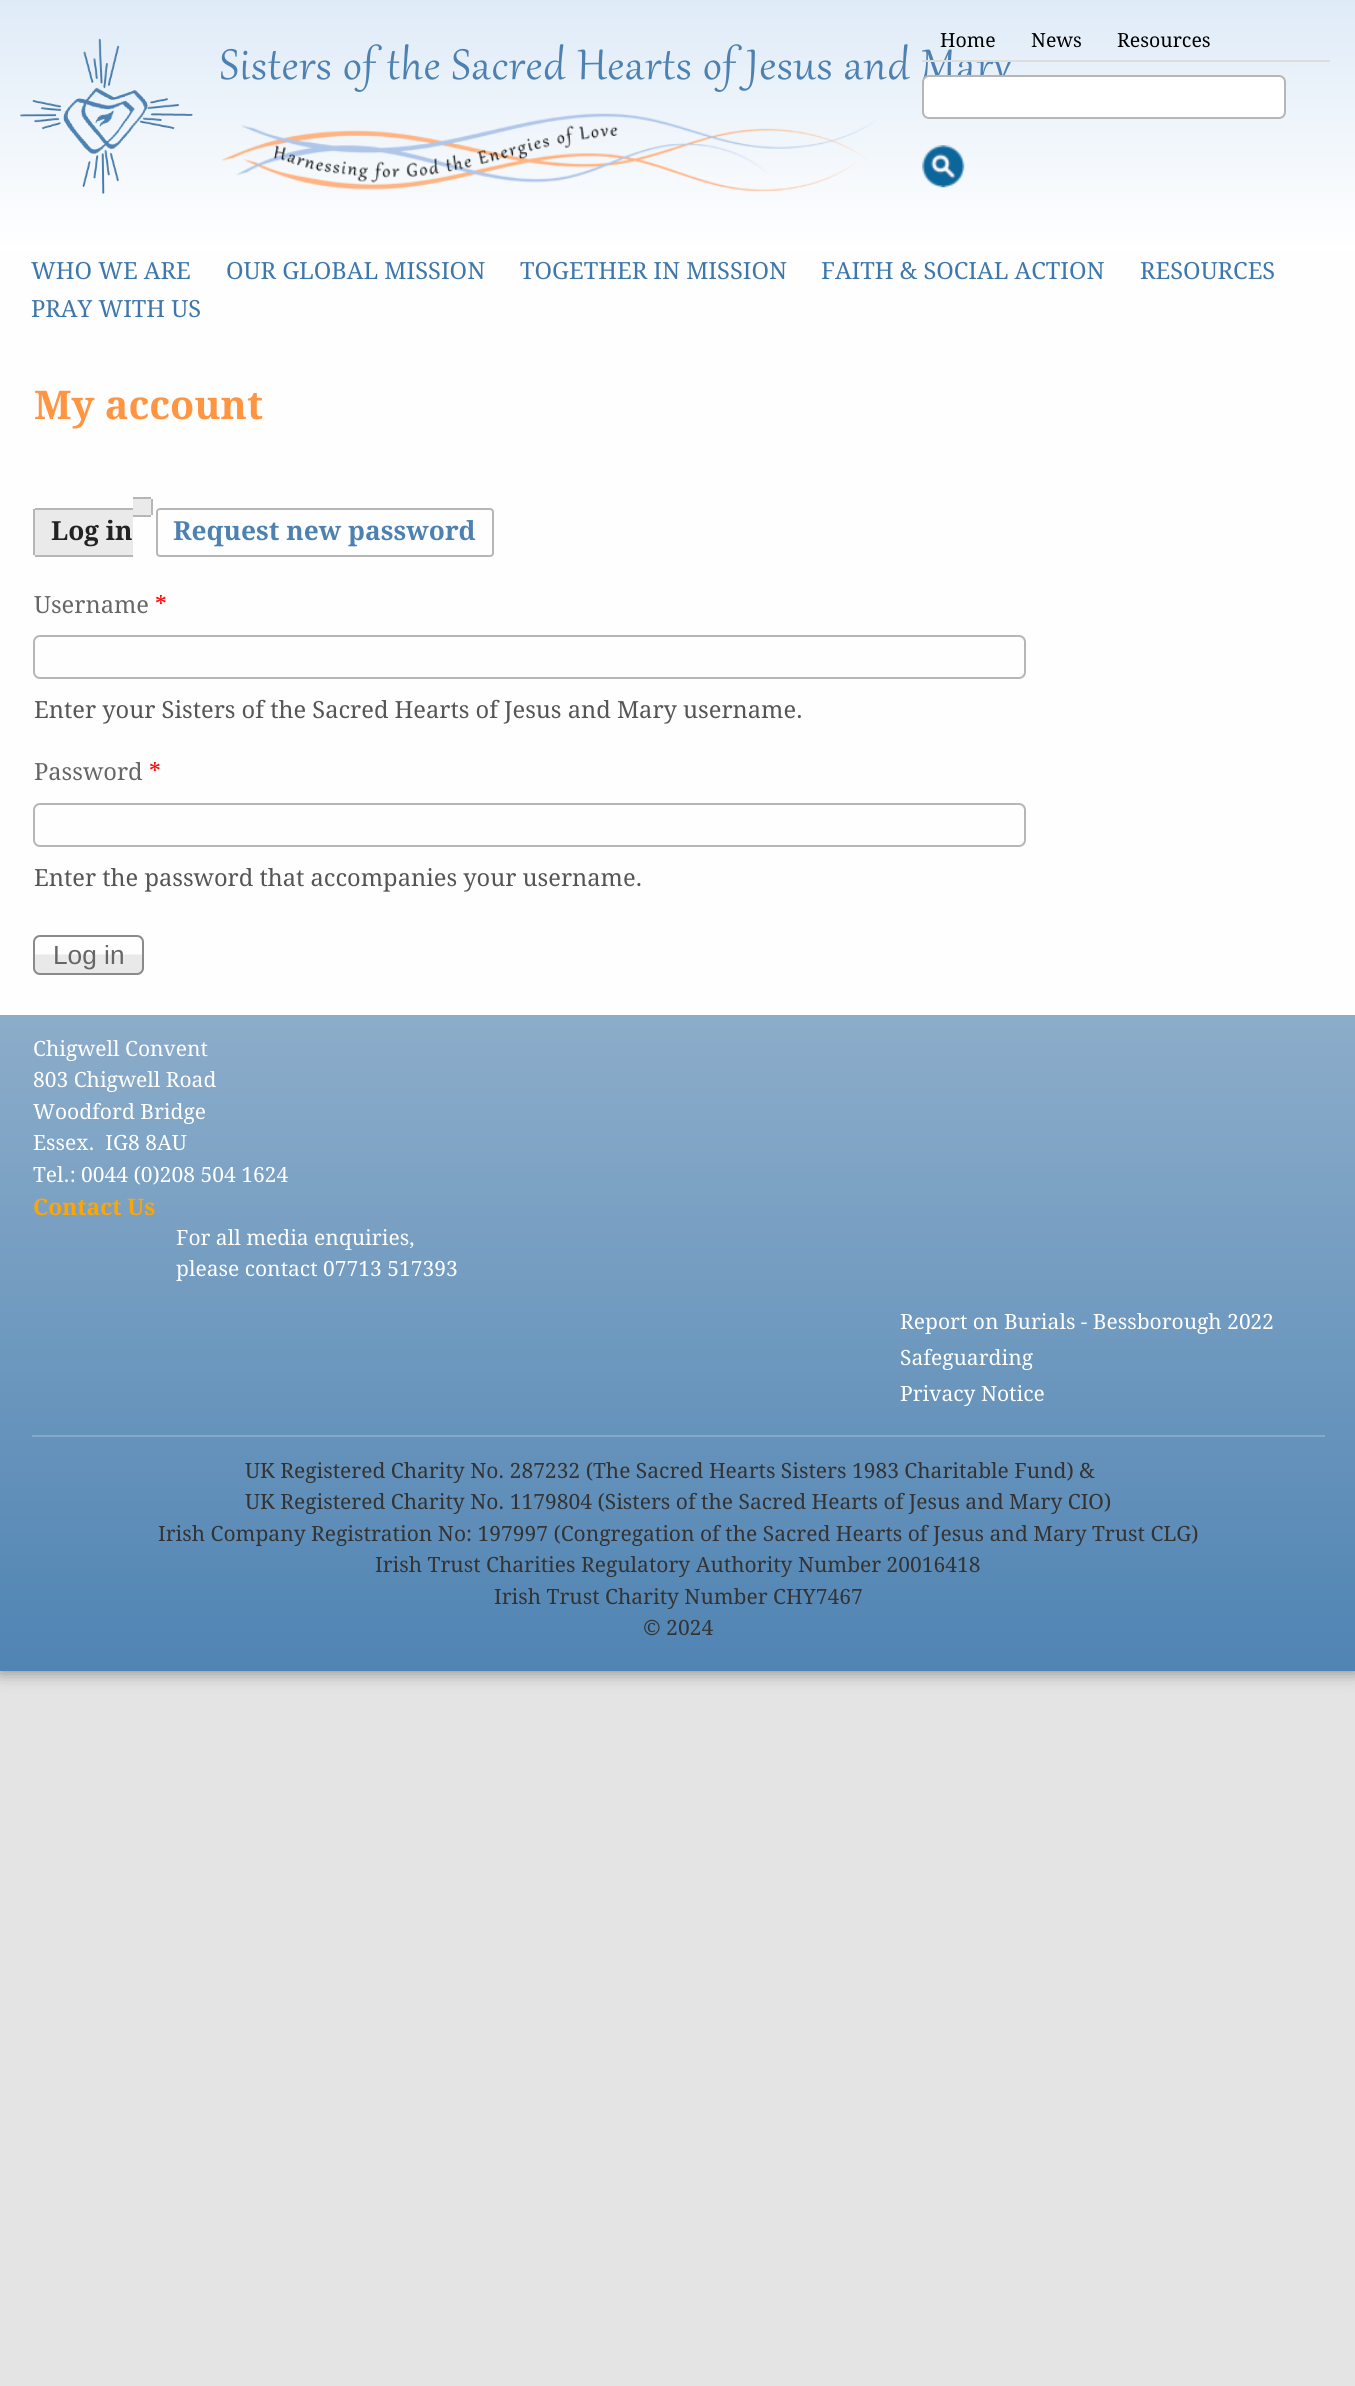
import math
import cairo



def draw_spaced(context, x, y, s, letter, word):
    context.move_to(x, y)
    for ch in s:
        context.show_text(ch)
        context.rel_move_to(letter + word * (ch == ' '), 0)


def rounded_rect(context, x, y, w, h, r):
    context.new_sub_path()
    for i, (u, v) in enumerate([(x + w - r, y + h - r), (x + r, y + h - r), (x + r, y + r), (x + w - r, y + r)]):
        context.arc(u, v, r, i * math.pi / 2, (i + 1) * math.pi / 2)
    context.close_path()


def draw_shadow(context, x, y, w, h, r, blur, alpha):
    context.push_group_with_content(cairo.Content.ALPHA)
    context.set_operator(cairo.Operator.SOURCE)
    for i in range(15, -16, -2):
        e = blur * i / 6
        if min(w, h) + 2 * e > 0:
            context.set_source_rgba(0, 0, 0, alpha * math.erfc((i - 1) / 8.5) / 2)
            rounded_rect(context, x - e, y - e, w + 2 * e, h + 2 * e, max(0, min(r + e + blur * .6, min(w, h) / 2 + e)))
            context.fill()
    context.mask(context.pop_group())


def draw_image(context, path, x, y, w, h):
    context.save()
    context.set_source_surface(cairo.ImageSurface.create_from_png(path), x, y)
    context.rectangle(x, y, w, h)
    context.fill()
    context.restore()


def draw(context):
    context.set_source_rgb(228 / 255, 228 / 255, 228 / 255)
    context.paint()
    context.set_source_rgb(76 / 255, 76 / 255, 76 / 255)
    draw_shadow(context, 0, 0, 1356, 1671, 0, 9, 0.7)
    context.set_source_rgb(254 / 255, 254 / 255, 1)
    context.rectangle(0, 252, 1355, 763)
    context.fill()
    gradient = cairo.LinearGradient(678, 0, 678, 252)
    gradient.add_color_stop_rgba(0, 223 / 255, 235 / 255, 247 / 255, 1)
    gradient.add_color_stop_rgba(1, 1, 1, 1, 1)
    context.set_source(gradient)
    context.rectangle(0, 0, 1355, 252)
    context.fill()
    draw_image(context, "images/1.png", 922, 145, 43, 43)
    draw_image(context, "images/2.png", 20, 38, 173, 156)
    draw_image(context, "images/3.png", 221, 113, 655, 78)
    context.set_source_rgb(234 / 255, 234 / 255, 234 / 255)
    context.new_path()
    context.move_to(37, 508)
    context.line_to(133, 508)
    context.line_to(133, 557)
    context.line_to(37, 557)
    context.curve_to(35, 557, 33, 555, 33, 553)
    context.line_to(33, 512)
    context.curve_to(33, 510, 35, 508, 37, 508)
    context.close_path()
    context.fill()
    context.set_source_rgb(182 / 255, 182 / 255, 182 / 255)
    context.rectangle(35, 508, 98, 2)
    context.fill()
    context.rectangle(35, 555, 98, 2)
    context.fill()
    context.rectangle(33, 509, 2, 46)
    context.fill()
    context.set_source_rgb(234 / 255, 234 / 255, 234 / 255)
    context.new_path()
    context.move_to(133, 497)
    context.line_to(148, 497)
    context.curve_to(150, 497, 152, 499, 152, 501)
    context.line_to(152, 512)
    context.curve_to(152, 514, 150, 516, 148, 516)
    context.line_to(133, 516)
    context.close_path()
    context.fill()
    context.set_source_rgb(182 / 255, 182 / 255, 182 / 255)
    context.rectangle(133, 497, 18, 2)
    context.fill()
    context.rectangle(151, 499, 2, 16)
    context.fill()
    context.rectangle(133, 515, 18, 2)
    context.fill()
    rounded_rect(context, 157, 509, 336, 47, 3)
    context.stroke()
    rounded_rect(context, 34, 636, 991, 42, 6)
    context.stroke()
    rounded_rect(context, 34, 804, 991, 42, 6)
    context.stroke()
    draw_image(context, "images/4.png", 33, 954, 111, 21)
    rounded_rect(context, 34, 936, 109, 38, 6)
    context.set_source_rgb(138 / 255, 138 / 255, 138 / 255)
    context.stroke()
    gradient = cairo.LinearGradient(0, 1015, 0, 1671)
    gradient.add_color_stop_rgba(0, 140 / 255, 173 / 255, 202 / 255, 1)
    gradient.add_color_stop_rgba(1, 80 / 255, 132 / 255, 179 / 255, 1)
    context.set_source(gradient)
    context.rectangle(0, 1015, 1355, 656)
    context.fill()
    context.set_source_rgb(132 / 255, 169 / 255, 201 / 255)
    context.rectangle(32, 1435, 1293, 2)
    context.fill()
    context.select_font_face("Droid Serif")
    context.set_font_size(19.5)
    context.set_source_rgb(0, 0, 0)
    context.move_to(940, 47)
    context.show_text("Home")
    context.move_to(1031, 47)
    context.show_text("News")
    context.move_to(1117, 47)
    context.show_text("Resources")
    context.select_font_face("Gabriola")
    context.set_font_size(52.5)
    context.set_source_rgb(76 / 255, 129 / 255, 177 / 255)
    draw_spaced(context, 220, 79, "Sisters of the Sacred Hearts of Jesus and Mary", 1.3, 0)
    context.set_source_rgb(1, 1, 1)
    rounded_rect(context, 923, 76, 362, 42, 6)
    context.fill_preserve()
    context.set_source_rgb(182 / 255, 182 / 255, 182 / 255)
    context.stroke()
    context.set_source_rgb(221 / 255, 221 / 255, 221 / 255)
    context.rectangle(922, 60, 408, 2)
    context.fill()
    context.select_font_face("Droid Serif")
    context.set_font_size(23.65)
    context.set_source_rgb(62 / 255, 119 / 255, 171 / 255)
    context.move_to(31, 279)
    context.show_text("WHO WE ARE")
    context.move_to(226, 279)
    context.show_text("OUR GLOBAL MISSION")
    context.move_to(520, 279)
    context.show_text("TOGETHER IN MISSION")
    context.move_to(821, 279)
    context.show_text("FAITH & SOCIAL ACTION")
    context.move_to(1140, 279)
    context.show_text("RESOURCES")
    context.move_to(31, 317)
    context.show_text("PRAY WITH US")
    context.select_font_face("Droid Serif", cairo.FontSlant.NORMAL, cairo.FontWeight.BOLD)
    context.set_font_size(39.5)
    context.set_source_rgb(1, 148 / 255, 65 / 255)
    context.move_to(34, 419)
    context.show_text("My account")
    context.set_font_size(26.25)
    context.set_source_rgb(34 / 255, 34 / 255, 34 / 255)
    context.move_to(51, 540)
    context.show_text("Log in")
    context.set_source_rgb(76 / 255, 129 / 255, 177 / 255)
    context.move_to(173, 540)
    context.show_text("Request new password")
    context.select_font_face("Droid Serif")
    context.set_font_size(23.65)
    context.set_source_rgb(102 / 255, 102 / 255, 102 / 255)
    context.move_to(34, 613)
    context.show_text("Username")
    context.set_source_rgb(1, 0, 0)
    context.move_to(155, 613)
    context.show_text("*")
    context.set_source_rgb(85 / 255, 85 / 255, 85 / 255)
    context.move_to(34, 718)
    context.show_text("Enter your Sisters of the Sacred Hearts of Jesus and Mary username.")
    context.set_source_rgb(102 / 255, 102 / 255, 102 / 255)
    context.move_to(34, 780)
    context.show_text("Password")
    context.set_source_rgb(1, 0, 0)
    context.move_to(149, 780)
    context.show_text("*")
    context.set_source_rgb(85 / 255, 85 / 255, 85 / 255)
    context.move_to(34, 886)
    context.show_text("Enter the password that accompanies your username.")
    context.select_font_face("Liberation Sans")
    context.set_font_size(26.25)
    context.set_source_rgb(102 / 255, 102 / 255, 102 / 255)
    context.move_to(53, 964)
    context.show_text("Log in")
    context.select_font_face("Droid Serif")
    context.set_font_size(21)
    context.set_source_rgb(1, 1, 1)
    context.move_to(33, 1056)
    context.show_text("Chigwell Convent")
    context.move_to(33, 1087)
    context.show_text("803 Chigwell Road")
    context.move_to(33, 1119)
    context.show_text("Woodford Bridge")
    context.move_to(33, 1150)
    context.show_text("Essex.  IG8 8AU")
    context.move_to(33, 1182)
    context.show_text("Tel.: 0044 (0)208 504 1624")
    context.select_font_face("Droid Serif", cairo.FontSlant.NORMAL, cairo.FontWeight.BOLD)
    context.set_font_size(22.75)
    context.set_source_rgb(1, 165 / 255, 0)
    context.move_to(33, 1215)
    context.show_text("Contact Us")
    context.select_font_face("Droid Serif")
    context.set_font_size(21)
    context.set_source_rgb(1, 1, 1)
    context.move_to(176, 1245)
    context.show_text("For all media enquiries,")
    context.move_to(176, 1276)
    context.show_text("please contact 07713 517393")
    context.move_to(900, 1329)
    context.show_text("Report on Burials - Bessborough 2022")
    context.move_to(900, 1365)
    context.show_text("Safeguarding")
    context.move_to(900, 1401)
    context.show_text("Privacy Notice")
    context.set_source_rgb(51 / 255, 51 / 255, 51 / 255)
    context.move_to(245, 1478)
    context.show_text("UK Registered Charity No. 287232 (The Sacred Hearts Sisters 1983 Charitable Fund) &")
    context.move_to(245, 1509)
    context.show_text("UK Registered Charity No. 1179804 (Sisters of the Sacred Hearts of Jesus and Mary CIO)")
    context.move_to(158, 1541)
    context.show_text("Irish Company Registration No: 197997 (Congregation of the Sacred Hearts of Jesus and Mary Trust CLG)")
    context.move_to(375, 1572)
    context.show_text("Irish Trust Charities Regulatory Authority Number 20016418")
    context.move_to(494, 1604)
    context.show_text("Irish Trust Charity Number CHY7467")
    context.move_to(643, 1635)
    context.show_text("© 2024")


surface = cairo.ImageSurface(cairo.Format.RGB24, 1355, 2386)
context = cairo.Context(surface)
options = cairo.FontOptions()
options.set_hint_metrics(cairo.HintMetrics.OFF)
options.set_hint_style(cairo.HintStyle.NONE)
context.set_font_options(options)
context.set_miter_limit(4)
draw(context)
surface.write_to_png("out.png")
